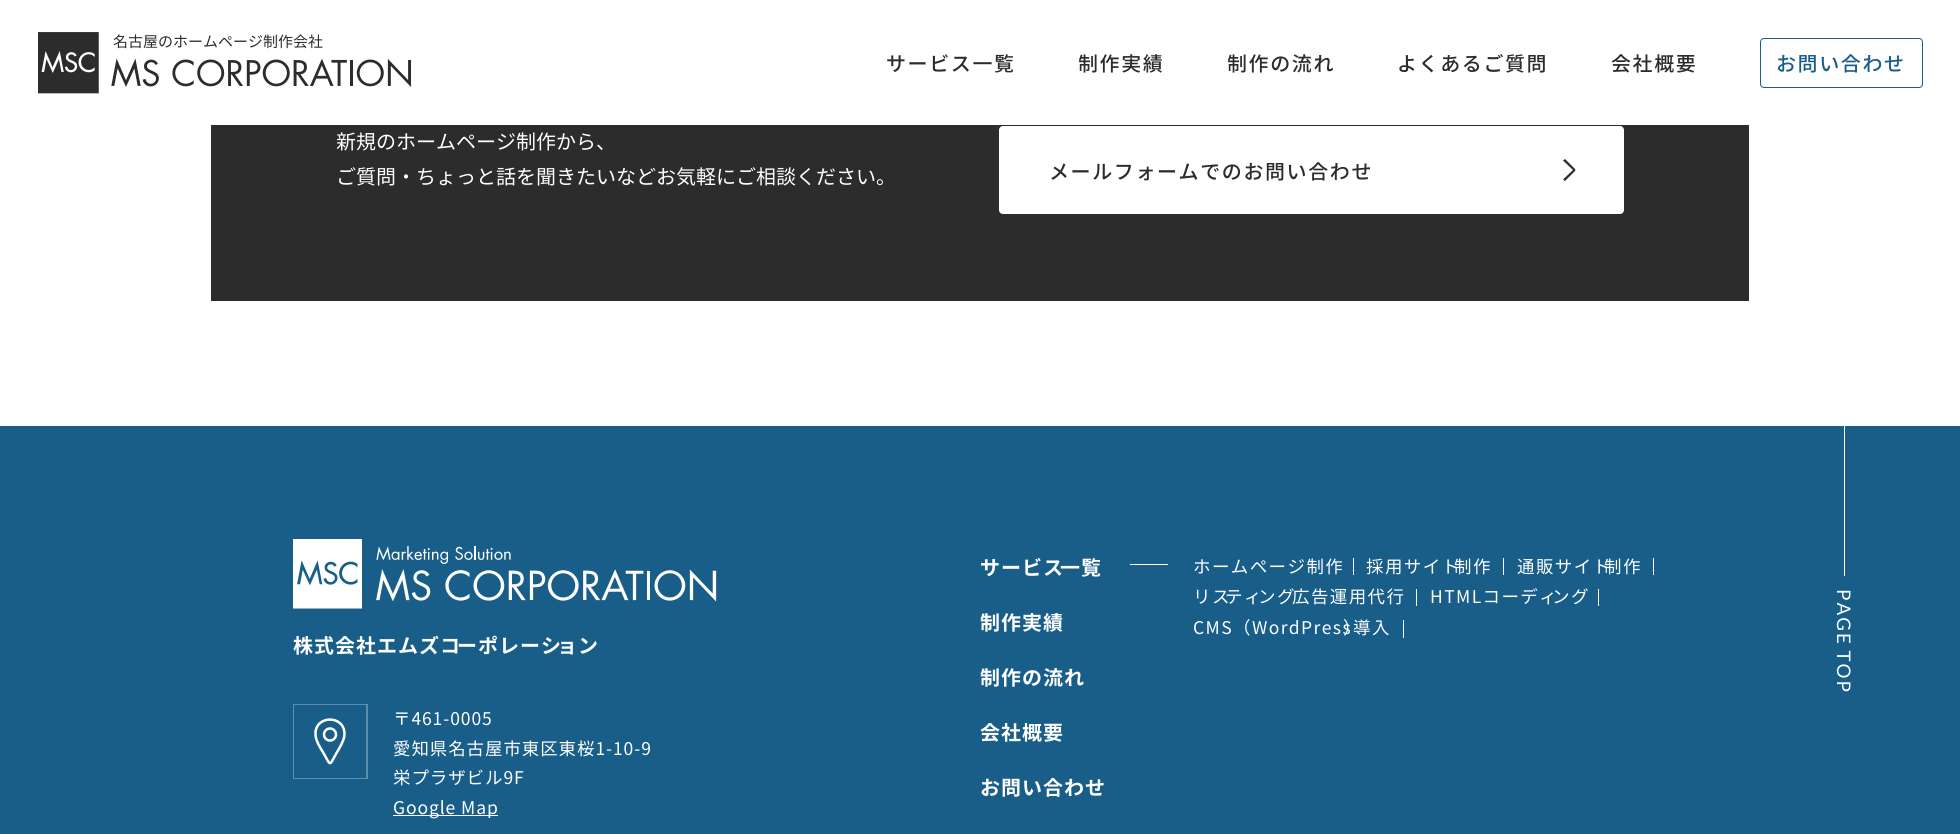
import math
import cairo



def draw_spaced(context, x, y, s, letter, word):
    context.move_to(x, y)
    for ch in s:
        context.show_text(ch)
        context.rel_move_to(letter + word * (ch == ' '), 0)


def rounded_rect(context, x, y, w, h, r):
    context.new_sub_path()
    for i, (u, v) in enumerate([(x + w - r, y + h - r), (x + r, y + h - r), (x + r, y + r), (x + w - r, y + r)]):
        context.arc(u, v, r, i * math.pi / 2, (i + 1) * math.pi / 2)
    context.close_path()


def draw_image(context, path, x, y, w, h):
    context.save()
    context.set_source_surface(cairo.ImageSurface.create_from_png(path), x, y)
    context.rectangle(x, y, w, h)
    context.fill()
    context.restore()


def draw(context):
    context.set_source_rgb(1, 1, 1)
    context.paint()
    draw_image(context, "images/1.png", 38, 32, 374, 62)
    rounded_rect(context, 1760.5, 38.5, 162, 49, 3.5)
    context.set_source_rgb(24 / 255, 94 / 255, 137 / 255)
    context.set_line_width(1)
    context.stroke()
    context.set_source_rgb(44 / 255, 44 / 255, 44 / 255)
    context.rectangle(211, 125, 1538, 176)
    context.fill()
    context.set_source_rgb(1, 1, 1)
    rounded_rect(context, 999, 126, 625, 88, 4)
    context.fill()
    context.set_source_rgb(44 / 255, 44 / 255, 44 / 255)
    context.new_path()
    context.move_to(1565, 159)
    context.line_to(1575.5, 169.5)
    context.line_to(1574, 171)
    context.line_to(1563, 160.5)
    context.close_path()
    context.fill()
    context.new_path()
    context.move_to(1563, 179.5)
    context.line_to(1574, 169)
    context.line_to(1575.5, 170.5)
    context.line_to(1565, 181)
    context.close_path()
    context.fill()
    context.set_source_rgb(24 / 255, 94 / 255, 137 / 255)
    context.rectangle(0, 426, 1960, 408)
    context.fill()
    draw_image(context, "images/2.png", 293, 539, 424, 70)
    context.new_path()
    context.move_to(344.5, 734)
    context.curve_to(344.5, 740, 339.5, 748, 336.5, 753)
    context.curve_to(329, 766.5, 331, 766.5, 323.5, 753)
    context.curve_to(320, 747.5, 315.5, 740.5, 315.5, 734)
    context.curve_to(315, 715, 344.5, 714.5, 344.5, 734)
    context.close_path()
    context.set_source_rgb(1, 1, 1)
    context.set_line_width(2.5)
    context.stroke()
    context.arc(330, 734.5, 6, 0, 2 * math.pi)
    context.stroke()
    context.save()
    context.rectangle(293, 704, 75, 75)
    context.clip()
    context.set_source_rgb(93 / 255, 142 / 255, 172 / 255)
    context.new_path()
    context.move_to(366, 705)
    context.line_to(366, 778)
    context.line_to(294, 778)
    context.line_to(294, 705)
    context.line_to(366, 705)
    context.move_to(368, 704)
    context.line_to(292, 704)
    context.line_to(292, 779)
    context.line_to(368, 779)
    context.close_path()
    context.fill()
    context.restore()
    context.rectangle(393, 815, 105, 1)
    context.fill()
    context.rectangle(1130, 564, 38, 1)
    context.fill()
    context.rectangle(1353, 558, 1, 17)
    context.fill()
    context.rectangle(1503, 558, 1, 17)
    context.fill()
    context.rectangle(1653, 558, 1, 17)
    context.fill()
    context.rectangle(1416, 589, 1, 17)
    context.fill()
    context.rectangle(1598, 589, 1, 17)
    context.fill()
    context.rectangle(1403, 620, 1, 18)
    context.fill()
    context.rectangle(1844, 426, 1, 150)
    context.fill()
    context.select_font_face("Noto Sans JP")
    context.set_font_size(15)
    context.set_source_rgb(44 / 255, 44 / 255, 44 / 255)
    context.move_to(113, 47)
    context.show_text("名古屋のホームページ制作会社")
    context.select_font_face("Noto Sans JP Medium")
    context.set_font_size(20)
    draw_spaced(context, 886, 71, "サービス一覧", 1.6, 0)
    draw_spaced(context, 1078, 71, "制作実績", 1.6, 0)
    draw_spaced(context, 1227, 71, "制作の流れ", 1.6, 0)
    draw_spaced(context, 1397, 71, "よくあるご質問", 1.6, 0)
    draw_spaced(context, 1611, 71, "会社概要", 1.6, 0)
    context.set_source_rgb(24 / 255, 94 / 255, 137 / 255)
    draw_spaced(context, 1776, 71, "お問い合わせ", 1.6, 0)
    context.select_font_face("Noto Sans JP")
    context.set_source_rgb(1, 1, 1)
    context.move_to(336, 149)
    context.show_text("新規のホームページ制作から、")
    context.move_to(336, 184)
    context.show_text("ご質問・ちょっと話を聞きたいなどお気軽にご相談ください。")
    context.select_font_face("Noto Sans JP Medium")
    context.set_source_rgb(44 / 255, 44 / 255, 44 / 255)
    draw_spaced(context, 1049, 179, "メールフォームでのお問い合わせ", 1.6, 0)
    context.select_font_face("Noto Sans JP", cairo.FontSlant.NORMAL, cairo.FontWeight.BOLD)
    context.set_source_rgb(1, 1, 1)
    draw_spaced(context, 293, 653, "株式会社エムズコ", 1, 0)
    draw_spaced(context, 457, 653, "ーポレーシ", 1, 0)
    draw_spaced(context, 557, 653, "ョン", 1, 0)
    context.select_font_face("Noto Sans JP")
    context.set_font_size(17.5)
    draw_spaced(context, 393, 725, "〒461-0005", 0.9, 0)
    draw_spaced(context, 393, 755, "愛知県名古屋市東区東桜1-10-9", 0.9, 0)
    draw_spaced(context, 393, 784, "栄プラザビル9F", 0.9, 0)
    draw_spaced(context, 393, 814, "Google Map", 0.9, 0)
    context.select_font_face("Noto Sans JP", cairo.FontSlant.NORMAL, cairo.FontWeight.BOLD)
    context.set_font_size(20)
    draw_spaced(context, 980, 575, "サービス", 1, 0)
    draw_spaced(context, 1060, 575, "一覧", 1, 0)
    context.select_font_face("Noto Sans JP")
    context.set_font_size(17.5)
    draw_spaced(context, 1193, 573, "ホームページ制作", 1.4, 0)
    draw_spaced(context, 1366, 573, "採用サイト", 1.4, 0)
    draw_spaced(context, 1454, 573, "制作", 1.4, 0)
    draw_spaced(context, 1517, 573, "通販サイト", 1.4, 0)
    draw_spaced(context, 1604, 573, "制作", 1.4, 0)
    draw_spaced(context, 1193, 603, "リス", 1.4, 0)
    draw_spaced(context, 1225, 603, "ティ", 1.4, 0)
    draw_spaced(context, 1258, 603, "ング", 1.4, 0)
    draw_spaced(context, 1292, 603, "広告運用代行", 1.4, 0)
    draw_spaced(context, 1430, 603, "HTMLコーディ", 1.4, 0)
    draw_spaced(context, 1552, 603, "ング", 1.4, 0)
    draw_spaced(context, 1193, 634, "CMS（WordPress", 1.4, 0)
    draw_spaced(context, 1343, 634, "）", 1.4, 0)
    draw_spaced(context, 1353, 634, "導入", 1.4, 0)
    context.select_font_face("Noto Sans JP", cairo.FontSlant.NORMAL, cairo.FontWeight.BOLD)
    context.set_font_size(20)
    draw_spaced(context, 980, 630, "制作実績", 1, 0)
    draw_spaced(context, 980, 685, "制作の流れ", 1, 0)
    draw_spaced(context, 980, 740, "会社概要", 1, 0)
    draw_spaced(context, 980, 795, "お問い合わせ", 1, 0)
    context.select_font_face("Lato")
    context.set_font_size(18.75)
    context.save()
    context.translate(1837, 589)
    context.rotate(90 * math.pi / 180)
    draw_spaced(context, 0, 0, "PAGE TOP", 2, -1)
    context.restore()


surface = cairo.ImageSurface(cairo.Format.RGB24, 1960, 834)
context = cairo.Context(surface)
options = cairo.FontOptions()
options.set_hint_metrics(cairo.HintMetrics.OFF)
options.set_hint_style(cairo.HintStyle.NONE)
context.set_font_options(options)
context.set_miter_limit(4)
draw(context)
surface.write_to_png("out.png")
